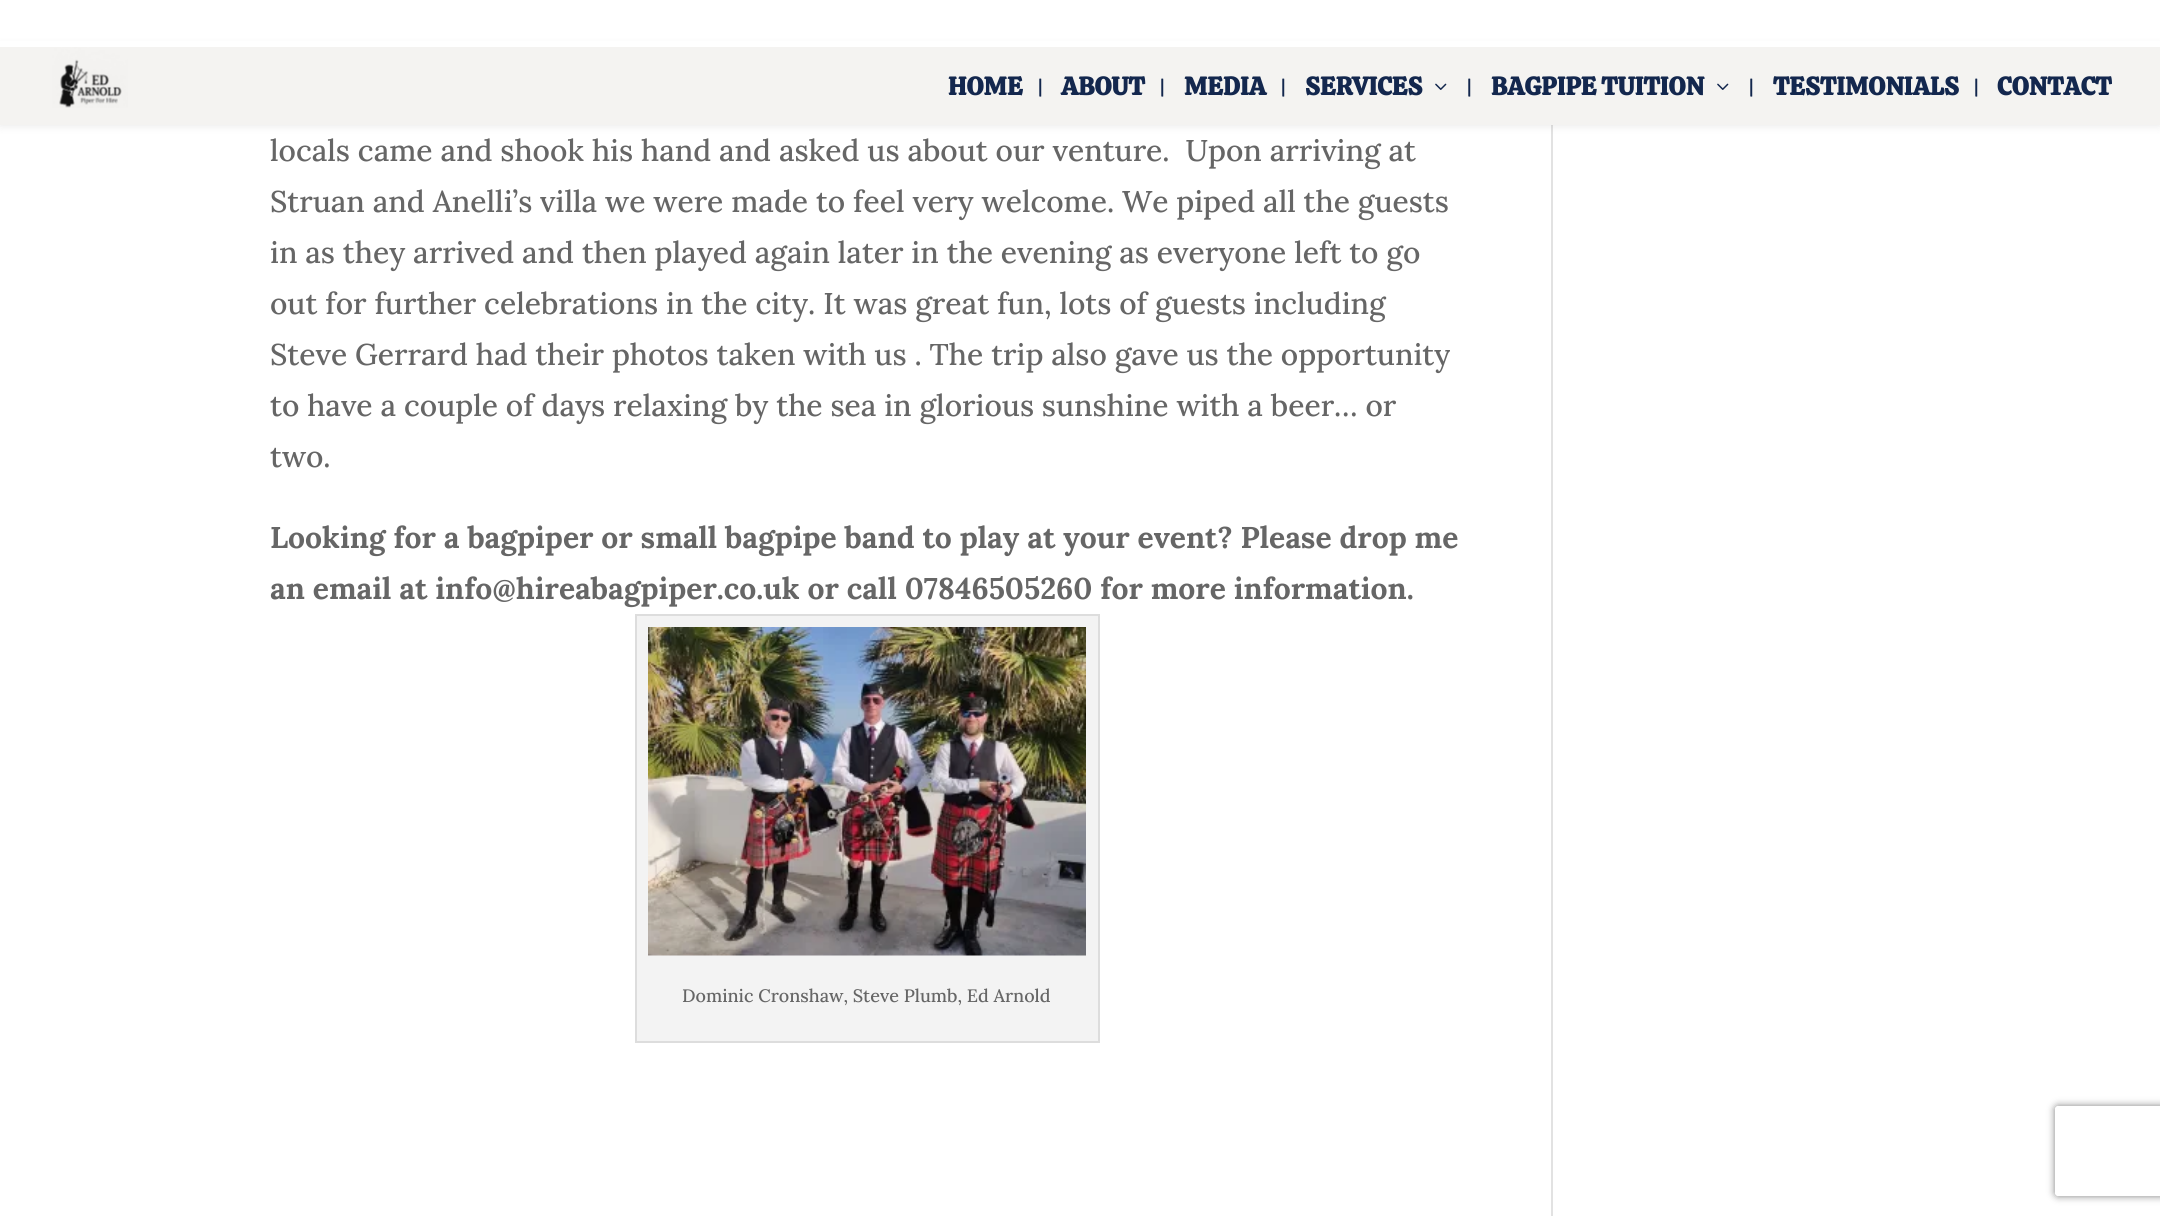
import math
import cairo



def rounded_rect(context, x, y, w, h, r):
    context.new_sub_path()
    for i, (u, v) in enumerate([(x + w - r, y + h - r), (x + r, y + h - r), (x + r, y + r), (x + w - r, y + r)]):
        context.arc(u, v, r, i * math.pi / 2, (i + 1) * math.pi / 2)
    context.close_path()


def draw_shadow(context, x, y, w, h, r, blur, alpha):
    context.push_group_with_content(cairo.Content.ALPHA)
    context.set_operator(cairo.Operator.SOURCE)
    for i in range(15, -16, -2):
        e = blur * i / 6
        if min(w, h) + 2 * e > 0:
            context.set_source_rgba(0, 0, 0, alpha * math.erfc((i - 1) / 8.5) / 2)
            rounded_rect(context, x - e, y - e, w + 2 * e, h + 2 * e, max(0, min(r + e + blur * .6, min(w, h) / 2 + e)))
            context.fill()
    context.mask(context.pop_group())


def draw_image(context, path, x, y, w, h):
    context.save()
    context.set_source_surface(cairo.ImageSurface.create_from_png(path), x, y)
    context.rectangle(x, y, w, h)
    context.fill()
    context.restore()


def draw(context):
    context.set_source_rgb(1, 1, 1)
    context.paint()
    context.set_source_rgb(226 / 255, 226 / 255, 226 / 255)
    context.rectangle(1551, 125, 2, 1091)
    context.fill()
    context.set_source_rgb(0, 0, 0)
    draw_shadow(context, 0, 47, 2160, 78, 0, 5, 0.1)
    context.set_source_rgb(1, 1, 1)
    context.rectangle(0, 41, 2160, 6)
    context.fill()
    context.set_source_rgb(244 / 255, 243 / 255, 241 / 255)
    context.rectangle(0, 47, 2160, 78)
    context.fill()
    draw_image(context, "images/1.png", 52, 47, 76, 61)
    draw_image(context, "images/2.png", 1435, 83, 12, 7)
    draw_image(context, "images/2.png", 1717, 83, 12, 7)
    context.set_source_rgb(243 / 255, 243 / 255, 243 / 255)
    context.rectangle(636, 615, 463, 427)
    context.fill_preserve()
    context.set_source_rgb(221 / 255, 221 / 255, 221 / 255)
    context.stroke()
    draw_image(context, "images/3.png", 648, 627, 438, 329)
    context.save()
    context.set_fill_rule(cairo.FillRule.EVEN_ODD)
    context.new_path()
    context.move_to(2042, 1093)
    context.line_to(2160, 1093)
    context.line_to(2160, 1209)
    context.line_to(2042, 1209)
    context.close_path()
    context.move_to(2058, 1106)
    context.line_to(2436, 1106)
    context.curve_to(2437.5, 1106, 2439, 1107.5, 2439, 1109)
    context.line_to(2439, 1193)
    context.curve_to(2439, 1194.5, 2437.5, 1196, 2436, 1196)
    context.line_to(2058, 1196)
    context.curve_to(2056.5, 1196, 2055, 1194.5, 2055, 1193)
    context.line_to(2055, 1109)
    context.curve_to(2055, 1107.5, 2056.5, 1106, 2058, 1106)
    context.close_path()
    context.clip()
    context.set_source_rgb(128 / 255, 128 / 255, 128 / 255)
    draw_shadow(context, 2055, 1106, 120, 90, 3, 4, 1)
    context.restore()
    context.select_font_face("Calistoga", cairo.FontSlant.NORMAL, cairo.FontWeight.BOLD)
    context.set_font_size(25.5)
    context.set_source_rgb(19 / 255, 39 / 255, 78 / 255)
    context.move_to(948, 95)
    context.show_text("HOME")
    context.set_font_size(18)
    context.move_to(1039, 92)
    context.show_text("|")
    context.set_font_size(25.5)
    context.move_to(1061, 95)
    context.show_text("ABOUT")
    context.set_font_size(18)
    context.move_to(1161, 92)
    context.show_text("|")
    context.set_font_size(25.5)
    context.move_to(1184, 95)
    context.show_text("MEDIA")
    context.set_font_size(18)
    context.move_to(1282, 92)
    context.show_text("|")
    context.set_font_size(25.5)
    context.move_to(1305, 95)
    context.show_text("SERVICES")
    context.set_font_size(18)
    context.move_to(1468, 92)
    context.show_text("|")
    context.set_font_size(25.5)
    context.move_to(1491, 95)
    context.show_text("BAGPIPE TUITION")
    context.set_font_size(18)
    context.move_to(1750, 92)
    context.show_text("|")
    context.set_font_size(25.5)
    context.move_to(1773, 95)
    context.show_text("TESTIMONIALS")
    context.set_font_size(18)
    context.move_to(1975, 92)
    context.show_text("|")
    context.set_font_size(25.5)
    context.move_to(1997, 95)
    context.show_text("CONTACT")
    context.select_font_face("Lora Medium")
    context.set_font_size(30)
    context.set_source_rgb(102 / 255, 102 / 255, 102 / 255)
    context.move_to(270, 161)
    context.show_text("locals came and shook his hand and asked us about our venture.  Upon arriving at")
    context.move_to(270, 212)
    context.show_text("Struan and Anelli’s villa we were made to feel very welcome. We piped all the guests")
    context.move_to(270, 263)
    context.show_text("in as they arrived and then played again later in the evening as everyone left to go")
    context.move_to(270, 314)
    context.show_text("out for further celebrations in the city. It was great fun, lots of guests including")
    context.move_to(270, 365)
    context.show_text("Steve Gerrard had their photos taken with us . The trip also gave us the opportunity")
    context.move_to(270, 416)
    context.show_text("to have a couple of days relaxing by the sea in glorious sunshine with a beer… or")
    context.move_to(270, 467)
    context.show_text("two.")
    context.select_font_face("Lora", cairo.FontSlant.NORMAL, cairo.FontWeight.BOLD)
    context.move_to(270, 548)
    context.show_text("Looking for a bagpiper or small bagpipe band to play at your event? Please drop me")
    context.move_to(270, 599)
    context.show_text("an email at info@hireabagpiper.co.uk or call 07846505260 for more information.")
    context.select_font_face("Lora Medium")
    context.set_font_size(18)
    context.move_to(682, 1002)
    context.show_text("Dominic Cronshaw, Steve Plumb, Ed Arnold")


surface = cairo.ImageSurface(cairo.Format.RGB24, 2160, 1216)
context = cairo.Context(surface)
options = cairo.FontOptions()
options.set_hint_metrics(cairo.HintMetrics.OFF)
options.set_hint_style(cairo.HintStyle.NONE)
context.set_font_options(options)
context.set_miter_limit(4)
draw(context)
surface.write_to_png("out.png")
